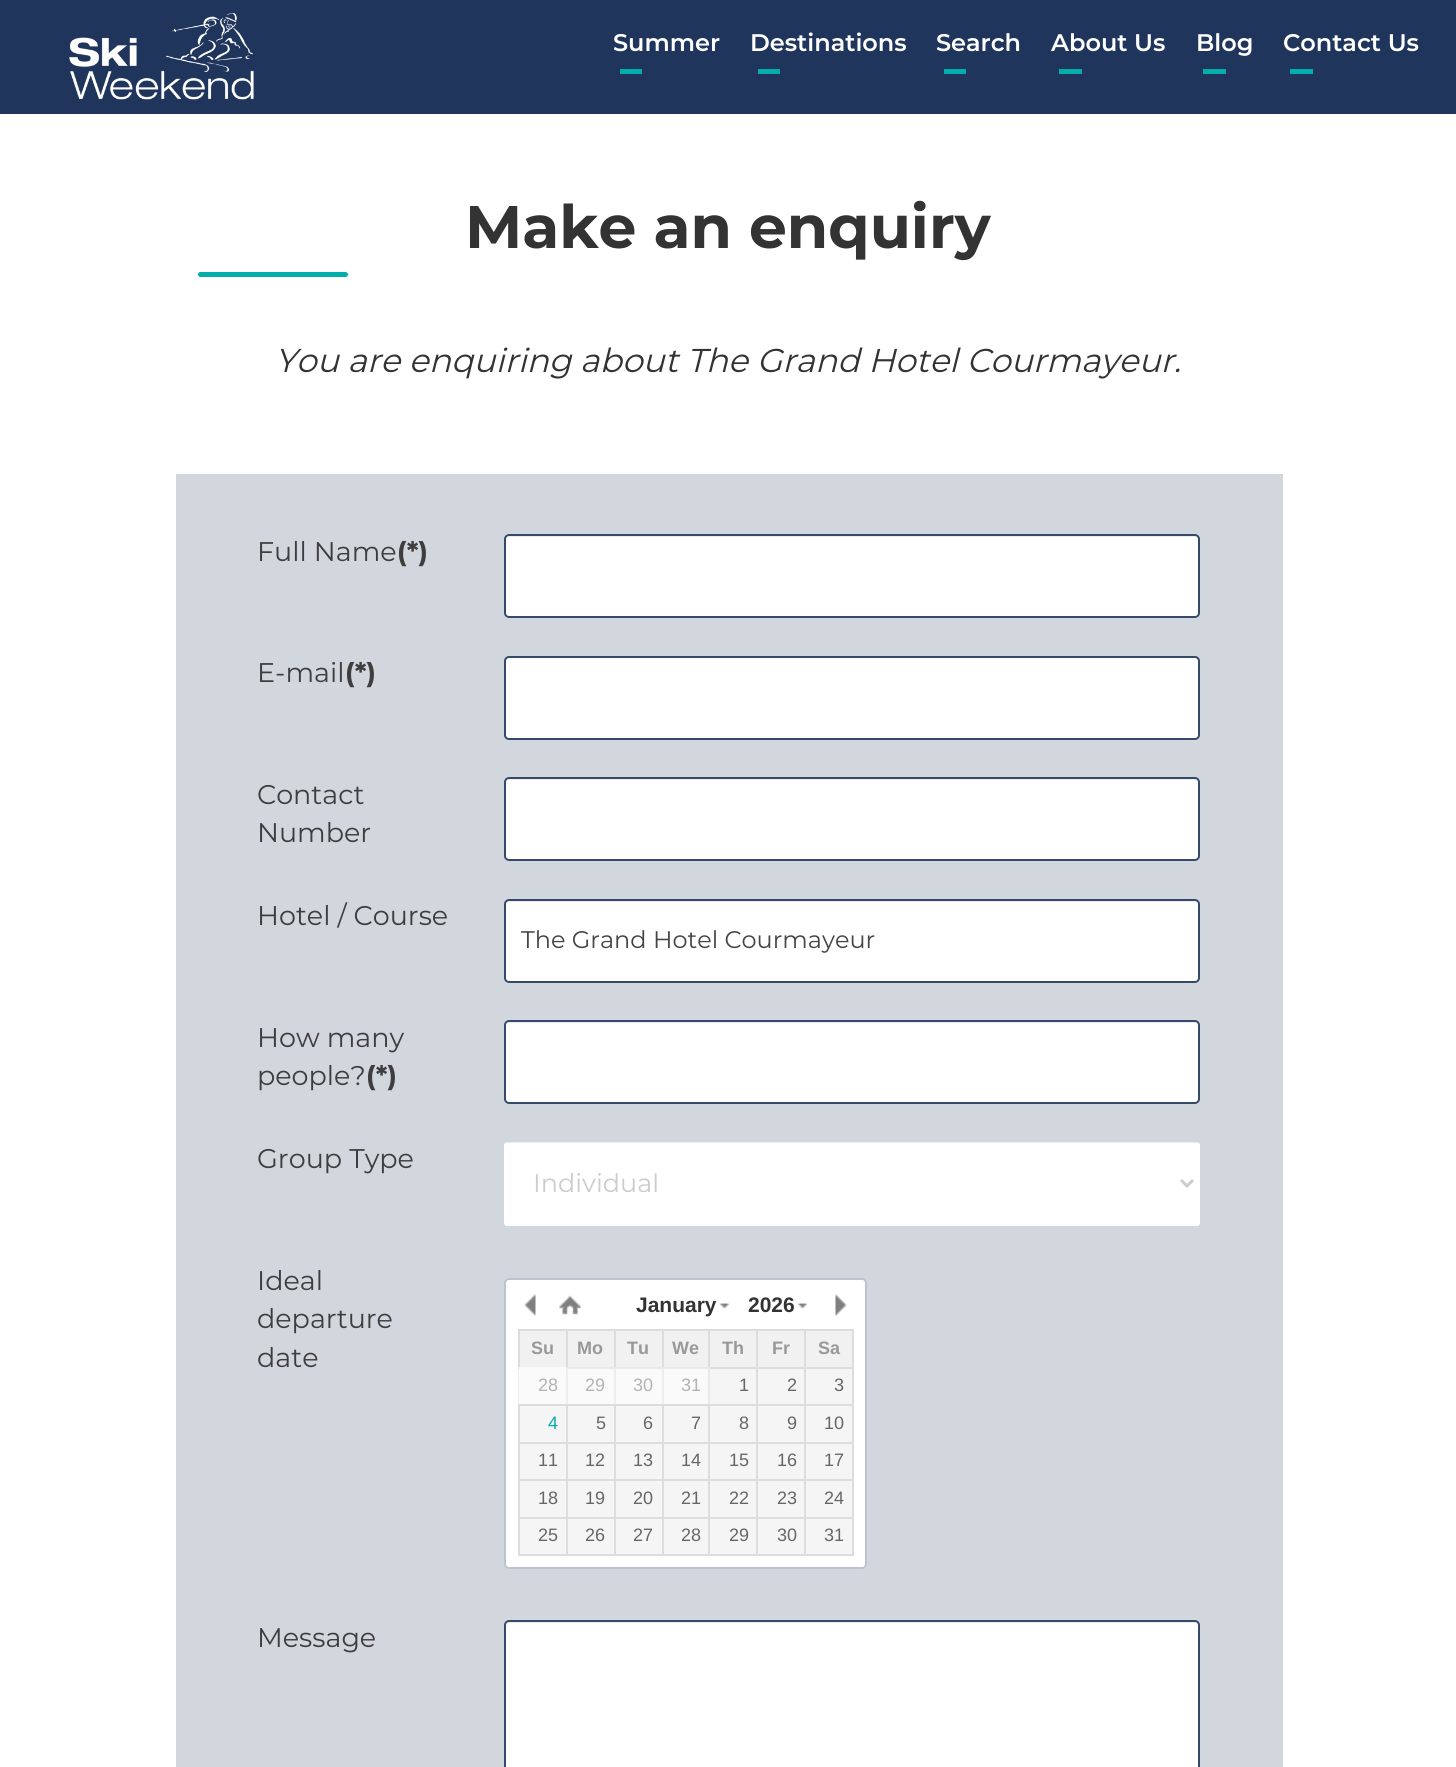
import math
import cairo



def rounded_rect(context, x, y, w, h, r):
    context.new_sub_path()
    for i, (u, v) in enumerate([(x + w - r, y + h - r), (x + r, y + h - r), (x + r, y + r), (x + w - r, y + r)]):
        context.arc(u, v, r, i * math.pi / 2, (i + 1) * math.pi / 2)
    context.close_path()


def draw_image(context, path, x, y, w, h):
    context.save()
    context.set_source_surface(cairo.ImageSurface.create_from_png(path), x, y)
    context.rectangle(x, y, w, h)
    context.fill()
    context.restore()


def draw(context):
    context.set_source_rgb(1, 1, 1)
    context.paint()
    context.set_source_rgb(31 / 255, 53 / 255, 92 / 255)
    context.rectangle(0, 0, 1456, 114)
    context.fill()
    draw_image(context, "images/1.png", 69, 13, 185, 87)
    context.set_source_rgb(1 / 255, 174 / 255, 172 / 255)
    context.rectangle(620, 69, 22, 5)
    context.fill()
    context.rectangle(758, 69, 22, 5)
    context.fill()
    context.rectangle(944, 69, 22, 5)
    context.fill()
    context.rectangle(1059, 69, 23, 5)
    context.fill()
    context.rectangle(1203, 69, 23, 5)
    context.fill()
    context.rectangle(1290, 69, 23, 5)
    context.fill()
    rounded_rect(context, 198, 272, 150, 5, 2.5)
    context.fill()
    context.set_source_rgb(210 / 255, 215 / 255, 222 / 255)
    context.rectangle(176, 474, 1107, 1293)
    context.fill()
    context.set_source_rgb(1, 1, 1)
    rounded_rect(context, 504, 534, 696, 84, 5)
    context.fill()
    context.set_source_rgb(236 / 255, 236 / 255, 236 / 255)
    context.new_path()
    context.move_to(508, 537)
    context.line_to(1196, 537)
    context.curve_to(1197, 537, 1198, 538, 1198, 540)
    context.line_to(1198, 616)
    context.curve_to(1199, 616, 1199, 615, 1199, 614)
    context.line_to(1199, 539)
    context.curve_to(1199, 537, 1198, 536, 1196, 536)
    context.line_to(509, 536)
    context.curve_to(507, 536, 506, 537, 506, 539)
    context.line_to(506, 540)
    context.curve_to(506, 538, 507, 537, 508, 537)
    context.close_path()
    context.fill()
    rounded_rect(context, 505, 535, 694, 82, 4)
    context.set_source_rgb(53 / 255, 73 / 255, 108 / 255)
    context.stroke()
    context.set_source_rgb(1, 1, 1)
    rounded_rect(context, 505, 657, 694, 82, 4)
    context.fill_preserve()
    context.set_source_rgb(53 / 255, 73 / 255, 108 / 255)
    context.stroke()
    context.set_source_rgb(1, 1, 1)
    rounded_rect(context, 504, 777, 696, 84, 5)
    context.fill()
    context.set_source_rgb(236 / 255, 236 / 255, 236 / 255)
    context.new_path()
    context.move_to(508, 780)
    context.line_to(1196, 780)
    context.curve_to(1197, 780, 1198, 781, 1198, 783)
    context.line_to(1198, 859)
    context.curve_to(1199, 859, 1199, 858, 1199, 857)
    context.line_to(1199, 782)
    context.curve_to(1199, 780, 1198, 779, 1196, 779)
    context.line_to(509, 779)
    context.curve_to(507, 779, 506, 780, 506, 782)
    context.line_to(506, 783)
    context.curve_to(506, 781, 507, 780, 508, 780)
    context.close_path()
    context.fill()
    rounded_rect(context, 505, 778, 694, 82, 4)
    context.set_source_rgb(53 / 255, 73 / 255, 108 / 255)
    context.stroke()
    context.set_source_rgb(1, 1, 1)
    rounded_rect(context, 504, 899, 696, 84, 5)
    context.fill()
    context.set_source_rgb(236 / 255, 236 / 255, 236 / 255)
    context.new_path()
    context.move_to(508, 902)
    context.line_to(1196, 902)
    context.curve_to(1197, 902, 1198, 903, 1198, 904)
    context.line_to(1198, 980)
    context.curve_to(1199, 980, 1199, 979, 1199, 978)
    context.line_to(1199, 903)
    context.curve_to(1199, 901, 1198, 900, 1196, 900)
    context.line_to(509, 900)
    context.curve_to(507, 900, 506, 901, 506, 903)
    context.line_to(506, 904)
    context.curve_to(506, 903, 507, 902, 508, 902)
    context.close_path()
    context.fill()
    rounded_rect(context, 505, 900, 694, 82, 4)
    context.set_source_rgb(53 / 255, 73 / 255, 108 / 255)
    context.stroke()
    context.set_source_rgb(1, 1, 1)
    rounded_rect(context, 504, 1020, 696, 84, 5)
    context.fill()
    context.set_source_rgb(236 / 255, 236 / 255, 236 / 255)
    context.new_path()
    context.move_to(508, 1023)
    context.line_to(1196, 1023)
    context.curve_to(1197, 1023, 1198, 1024, 1198, 1026)
    context.line_to(1198, 1102)
    context.curve_to(1199, 1102, 1199, 1101, 1199, 1100)
    context.line_to(1199, 1025)
    context.curve_to(1199, 1023, 1198, 1022, 1196, 1022)
    context.line_to(509, 1022)
    context.curve_to(507, 1022, 506, 1023, 506, 1025)
    context.line_to(506, 1026)
    context.curve_to(506, 1024, 507, 1023, 508, 1023)
    context.close_path()
    context.fill()
    rounded_rect(context, 505, 1021, 694, 82, 4)
    context.set_source_rgb(53 / 255, 73 / 255, 108 / 255)
    context.stroke()
    context.set_source_rgb(1, 1, 1)
    rounded_rect(context, 504, 1142, 696, 84, 3)
    context.fill()
    context.set_source_rgba(0, 0, 0, 0.07)
    context.new_path()
    context.move_to(507, 1143)
    context.line_to(1197, 1143)
    context.curve_to(1199, 1143, 1200, 1144, 1200, 1146)
    context.curve_to(1200, 1144, 1199, 1142, 1197, 1142)
    context.line_to(507, 1142)
    context.curve_to(505, 1142, 504, 1144, 504, 1146)
    context.curve_to(504, 1144, 505, 1143, 507, 1143)
    context.close_path()
    context.fill()
    context.new_path()
    context.move_to(1181, 1180)
    context.line_to(1187, 1186)
    context.line_to(1193, 1180)
    context.set_source_rgb(204 / 255, 204 / 255, 204 / 255)
    context.set_line_width(3)
    context.stroke()
    context.set_source_rgb(1, 1, 1)
    rounded_rect(context, 504, 1278, 363, 291, 5)
    context.fill()
    context.set_source_rgb(250 / 255, 250 / 255, 250 / 255)
    context.rectangle(664, 1369, 44, 35)
    context.fill()
    context.rectangle(616, 1369, 46, 35)
    context.fill()
    context.rectangle(568, 1369, 46, 35)
    context.fill()
    context.set_source_rgb(238 / 255, 238 / 255, 238 / 255)
    context.rectangle(518, 1367, 1, 39)
    context.fill()
    context.rectangle(566, 1367, 2, 37)
    context.fill()
    context.rectangle(614, 1367, 2, 37)
    context.fill()
    context.rectangle(662, 1367, 2, 37)
    context.fill()
    rounded_rect(context, 505, 1279, 361, 289, 4)
    context.set_source_rgba(31 / 255, 53 / 255, 92 / 255, 0.3)
    context.set_line_width(2)
    context.stroke()
    draw_image(context, "images/2.png", 524, 1294, 12, 22)
    draw_image(context, "images/3.png", 559, 1295, 22, 20)
    draw_image(context, "images/4.png", 719, 1303, 11, 6)
    draw_image(context, "images/4.png", 797, 1303, 11, 6)
    draw_image(context, "images/5.png", 835, 1294, 12, 22)
    context.set_source_rgb(241 / 255, 241 / 255, 241 / 255)
    context.rectangle(520, 1331, 46, 36)
    context.fill()
    context.set_source_rgb(221 / 255, 221 / 255, 221 / 255)
    context.rectangle(804, 1329, 50, 2)
    context.fill()
    context.rectangle(804, 1367, 50, 2)
    context.fill()
    context.rectangle(804, 1404, 50, 2)
    context.fill()
    context.rectangle(804, 1442, 50, 2)
    context.fill()
    context.rectangle(804, 1479, 50, 2)
    context.fill()
    context.rectangle(804, 1517, 50, 2)
    context.fill()
    context.rectangle(852, 1517, 2, 39)
    context.fill()
    context.rectangle(804, 1554, 50, 2)
    context.fill()
    context.rectangle(804, 1517, 2, 39)
    context.fill()
    context.rectangle(756, 1517, 50, 2)
    context.fill()
    context.rectangle(804, 1479, 2, 39)
    context.fill()
    context.rectangle(756, 1479, 50, 2)
    context.fill()
    context.rectangle(804, 1442, 2, 39)
    context.fill()
    context.rectangle(756, 1442, 50, 2)
    context.fill()
    context.rectangle(804, 1404, 2, 39)
    context.fill()
    context.rectangle(756, 1404, 50, 2)
    context.fill()
    context.rectangle(804, 1367, 2, 39)
    context.fill()
    context.rectangle(756, 1367, 50, 2)
    context.fill()
    context.rectangle(804, 1329, 2, 39)
    context.fill()
    context.rectangle(756, 1329, 50, 2)
    context.fill()
    context.rectangle(756, 1554, 50, 2)
    context.fill()
    context.rectangle(756, 1517, 2, 39)
    context.fill()
    context.rectangle(708, 1517, 50, 2)
    context.fill()
    context.rectangle(756, 1479, 2, 39)
    context.fill()
    context.rectangle(708, 1479, 50, 2)
    context.fill()
    context.rectangle(756, 1442, 2, 39)
    context.fill()
    context.rectangle(708, 1442, 50, 2)
    context.fill()
    context.rectangle(756, 1404, 2, 39)
    context.fill()
    context.rectangle(708, 1404, 50, 2)
    context.fill()
    context.rectangle(756, 1367, 2, 39)
    context.fill()
    context.rectangle(708, 1367, 50, 2)
    context.fill()
    context.rectangle(756, 1329, 2, 39)
    context.fill()
    context.rectangle(708, 1329, 50, 2)
    context.fill()
    context.set_source_rgb(233 / 255, 233 / 255, 233 / 255)
    context.rectangle(708, 1367, 2, 37)
    context.fill()
    context.set_source_rgb(221 / 255, 221 / 255, 221 / 255)
    context.rectangle(708, 1329, 2, 39)
    context.fill()
    context.rectangle(662, 1329, 48, 2)
    context.fill()
    context.set_source_rgb(233 / 255, 233 / 255, 233 / 255)
    context.rectangle(566, 1367, 144, 2)
    context.fill()
    context.set_source_rgb(221 / 255, 221 / 255, 221 / 255)
    context.rectangle(662, 1329, 2, 39)
    context.fill()
    context.rectangle(614, 1329, 49, 2)
    context.fill()
    context.rectangle(614, 1329, 2, 39)
    context.fill()
    context.rectangle(566, 1329, 49, 2)
    context.fill()
    context.rectangle(566, 1329, 2, 39)
    context.fill()
    context.rectangle(518, 1329, 49, 2)
    context.fill()
    context.rectangle(518, 1368, 1, 1)
    context.fill()
    context.rectangle(518, 1329, 2, 39)
    context.fill()
    context.set_source_rgb(241 / 255, 241 / 255, 241 / 255)
    context.rectangle(568, 1331, 46, 36)
    context.fill()
    context.set_source_rgb(233 / 255, 233 / 255, 233 / 255)
    context.rectangle(566, 1367, 2, 1)
    context.fill()
    context.set_source_rgb(241 / 255, 241 / 255, 241 / 255)
    context.rectangle(616, 1331, 46, 36)
    context.fill()
    context.set_source_rgb(233 / 255, 233 / 255, 233 / 255)
    context.rectangle(614, 1367, 2, 1)
    context.fill()
    context.set_source_rgb(241 / 255, 241 / 255, 241 / 255)
    context.rectangle(664, 1331, 44, 36)
    context.fill()
    context.set_source_rgb(233 / 255, 233 / 255, 233 / 255)
    context.rectangle(662, 1367, 2, 1)
    context.fill()
    context.set_source_rgb(241 / 255, 241 / 255, 241 / 255)
    context.rectangle(710, 1331, 46, 36)
    context.fill()
    context.rectangle(758, 1331, 46, 36)
    context.fill()
    context.rectangle(806, 1331, 46, 36)
    context.fill()
    context.set_source_rgb(221 / 255, 221 / 255, 221 / 255)
    context.rectangle(852, 1479, 2, 39)
    context.fill()
    context.rectangle(852, 1442, 2, 39)
    context.fill()
    context.rectangle(852, 1404, 2, 39)
    context.fill()
    context.rectangle(852, 1367, 2, 39)
    context.fill()
    context.rectangle(852, 1329, 2, 39)
    context.fill()
    context.set_source_rgb(250 / 255, 250 / 255, 250 / 255)
    context.rectangle(519, 1367, 47, 37)
    context.fill()
    context.set_source_rgb(245 / 255, 245 / 255, 245 / 255)
    context.rectangle(710, 1369, 46, 35)
    context.fill()
    context.rectangle(758, 1369, 46, 35)
    context.fill()
    context.rectangle(806, 1369, 46, 35)
    context.fill()
    context.rectangle(520, 1406, 46, 36)
    context.fill()
    context.set_source_rgb(221 / 255, 221 / 255, 221 / 255)
    context.rectangle(708, 1554, 50, 2)
    context.fill()
    context.rectangle(708, 1517, 2, 39)
    context.fill()
    context.rectangle(662, 1517, 48, 2)
    context.fill()
    context.rectangle(708, 1479, 2, 39)
    context.fill()
    context.rectangle(662, 1479, 48, 2)
    context.fill()
    context.rectangle(708, 1442, 2, 39)
    context.fill()
    context.rectangle(662, 1442, 48, 2)
    context.fill()
    context.rectangle(708, 1404, 2, 39)
    context.fill()
    context.rectangle(662, 1404, 48, 2)
    context.fill()
    context.rectangle(662, 1554, 48, 2)
    context.fill()
    context.rectangle(662, 1517, 2, 39)
    context.fill()
    context.rectangle(614, 1517, 49, 2)
    context.fill()
    context.rectangle(662, 1479, 2, 39)
    context.fill()
    context.rectangle(614, 1479, 49, 2)
    context.fill()
    context.rectangle(662, 1442, 2, 39)
    context.fill()
    context.rectangle(614, 1442, 49, 2)
    context.fill()
    context.rectangle(662, 1404, 2, 39)
    context.fill()
    context.rectangle(614, 1404, 49, 2)
    context.fill()
    context.rectangle(614, 1554, 49, 2)
    context.fill()
    context.rectangle(614, 1517, 2, 39)
    context.fill()
    context.rectangle(566, 1517, 49, 2)
    context.fill()
    context.rectangle(614, 1479, 2, 39)
    context.fill()
    context.rectangle(566, 1479, 49, 2)
    context.fill()
    context.rectangle(614, 1442, 2, 39)
    context.fill()
    context.rectangle(566, 1442, 49, 2)
    context.fill()
    context.rectangle(614, 1404, 2, 39)
    context.fill()
    context.rectangle(566, 1404, 49, 2)
    context.fill()
    context.rectangle(566, 1554, 49, 2)
    context.fill()
    context.rectangle(566, 1517, 2, 39)
    context.fill()
    context.rectangle(518, 1517, 49, 2)
    context.fill()
    context.rectangle(566, 1479, 2, 39)
    context.fill()
    context.rectangle(518, 1479, 49, 2)
    context.fill()
    context.rectangle(566, 1442, 2, 39)
    context.fill()
    context.rectangle(518, 1442, 49, 2)
    context.fill()
    context.rectangle(566, 1404, 2, 39)
    context.fill()
    context.rectangle(518, 1404, 49, 2)
    context.fill()
    context.rectangle(518, 1554, 49, 2)
    context.fill()
    context.rectangle(518, 1517, 2, 39)
    context.fill()
    context.rectangle(518, 1479, 2, 39)
    context.fill()
    context.rectangle(518, 1442, 2, 39)
    context.fill()
    context.rectangle(518, 1404, 2, 39)
    context.fill()
    context.set_source_rgb(245 / 255, 245 / 255, 245 / 255)
    context.rectangle(568, 1406, 46, 36)
    context.fill()
    context.rectangle(616, 1406, 46, 36)
    context.fill()
    context.rectangle(664, 1406, 44, 36)
    context.fill()
    context.rectangle(710, 1406, 46, 36)
    context.fill()
    context.rectangle(758, 1406, 46, 36)
    context.fill()
    context.rectangle(806, 1406, 46, 36)
    context.fill()
    context.rectangle(520, 1444, 46, 35)
    context.fill()
    context.rectangle(568, 1444, 46, 35)
    context.fill()
    context.rectangle(616, 1444, 46, 35)
    context.fill()
    context.rectangle(664, 1444, 44, 35)
    context.fill()
    context.rectangle(710, 1444, 46, 35)
    context.fill()
    context.rectangle(758, 1444, 46, 35)
    context.fill()
    context.rectangle(806, 1444, 46, 35)
    context.fill()
    context.rectangle(520, 1481, 46, 36)
    context.fill()
    context.rectangle(568, 1481, 46, 36)
    context.fill()
    context.rectangle(616, 1481, 46, 36)
    context.fill()
    context.rectangle(664, 1481, 44, 36)
    context.fill()
    context.rectangle(710, 1481, 46, 36)
    context.fill()
    context.rectangle(758, 1481, 46, 36)
    context.fill()
    context.rectangle(806, 1481, 46, 36)
    context.fill()
    context.rectangle(520, 1519, 46, 35)
    context.fill()
    context.rectangle(568, 1519, 46, 35)
    context.fill()
    context.rectangle(616, 1519, 46, 35)
    context.fill()
    context.rectangle(664, 1519, 44, 35)
    context.fill()
    context.rectangle(710, 1519, 46, 35)
    context.fill()
    context.rectangle(758, 1519, 46, 35)
    context.fill()
    context.rectangle(806, 1519, 46, 35)
    context.fill()
    context.set_source_rgb(1, 1, 1)
    rounded_rect(context, 504, 1620, 696, 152, 5)
    context.fill()
    context.set_source_rgb(236 / 255, 236 / 255, 236 / 255)
    context.new_path()
    context.move_to(508, 1623)
    context.line_to(1196, 1623)
    context.curve_to(1197, 1623, 1198, 1624, 1198, 1626)
    context.line_to(1198, 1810)
    context.curve_to(1199, 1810, 1199, 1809, 1199, 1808)
    context.line_to(1199, 1625)
    context.curve_to(1199, 1623, 1198, 1622, 1196, 1622)
    context.line_to(509, 1622)
    context.curve_to(507, 1622, 506, 1623, 506, 1625)
    context.line_to(506, 1626)
    context.curve_to(506, 1624, 507, 1623, 508, 1623)
    context.close_path()
    context.fill()
    rounded_rect(context, 505, 1621, 694, 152, 4)
    context.set_source_rgb(53 / 255, 73 / 255, 108 / 255)
    context.stroke()
    context.select_font_face("Montserrat SemiBold")
    context.set_font_size(24)
    context.set_source_rgb(1, 1, 1)
    context.move_to(613, 51)
    context.show_text("Summer")
    context.move_to(750, 51)
    context.show_text("Destinations")
    context.move_to(936, 51)
    context.show_text("Search")
    context.move_to(1051, 51)
    context.show_text("About Us")
    context.move_to(1196, 51)
    context.show_text("Blog")
    context.move_to(1283, 51)
    context.show_text("Contact Us")
    context.select_font_face("Montserrat", cairo.FontSlant.NORMAL, cairo.FontWeight.BOLD)
    context.set_font_size(60)
    context.set_source_rgb(51 / 255, 51 / 255, 51 / 255)
    context.move_to(465, 248)
    context.show_text("Make an enquiry")
    context.select_font_face("Montserrat", cairo.FontSlant.ITALIC)
    context.set_font_size(33)
    context.move_to(275, 372)
    context.show_text("You are enquiring about The Grand Hotel Courmayeur.")
    context.select_font_face("Montserrat")
    context.set_font_size(27)
    context.set_source_rgb(62 / 255, 62 / 255, 62 / 255)
    context.move_to(257, 561)
    context.show_text("Full Name")
    context.select_font_face("Montserrat", cairo.FontSlant.NORMAL, cairo.FontWeight.BOLD)
    context.move_to(397, 561)
    context.show_text("(*)")
    context.select_font_face("Montserrat")
    context.move_to(257, 682)
    context.show_text("E-mail")
    context.select_font_face("Montserrat", cairo.FontSlant.NORMAL, cairo.FontWeight.BOLD)
    context.move_to(345, 682)
    context.show_text("(*)")
    context.select_font_face("Montserrat")
    context.move_to(257, 804)
    context.show_text("Contact")
    context.move_to(257, 842)
    context.show_text("Number")
    context.move_to(257, 925)
    context.show_text("Hotel / Course")
    context.set_font_size(24)
    context.set_source_rgb(68 / 255, 68 / 255, 68 / 255)
    context.move_to(521, 948)
    context.show_text("The Grand Hotel Courmayeur")
    context.set_font_size(27)
    context.set_source_rgb(62 / 255, 62 / 255, 62 / 255)
    context.move_to(257, 1047)
    context.show_text("How many")
    context.move_to(257, 1085)
    context.show_text("people?")
    context.select_font_face("Montserrat", cairo.FontSlant.NORMAL, cairo.FontWeight.BOLD)
    context.move_to(366, 1085)
    context.show_text("(*)")
    context.select_font_face("Montserrat")
    context.move_to(257, 1168)
    context.show_text("Group Type")
    context.set_font_size(25.5)
    context.set_source_rgb(204 / 255, 204 / 255, 204 / 255)
    context.move_to(533, 1192)
    context.show_text("Individual")
    context.set_font_size(27)
    context.set_source_rgb(62 / 255, 62 / 255, 62 / 255)
    context.move_to(257, 1290)
    context.show_text("Ideal")
    context.move_to(257, 1328)
    context.show_text("departure")
    context.move_to(257, 1367)
    context.show_text("date")
    context.select_font_face("Liberation Sans", cairo.FontSlant.NORMAL, cairo.FontWeight.BOLD)
    context.set_font_size(21)
    context.set_source_rgb(51 / 255, 51 / 255, 51 / 255)
    context.move_to(636, 1312)
    context.show_text("January")
    context.move_to(748, 1312)
    context.show_text("2026")
    context.set_font_size(18)
    context.set_source_rgb(153 / 255, 153 / 255, 153 / 255)
    context.move_to(531, 1354)
    context.show_text("Su")
    context.move_to(577, 1354)
    context.show_text("Mo")
    context.move_to(627, 1354)
    context.show_text("Tu")
    context.move_to(672, 1354)
    context.show_text("We")
    context.move_to(722, 1354)
    context.show_text("Th")
    context.move_to(772, 1354)
    context.show_text("Fr")
    context.move_to(818, 1354)
    context.show_text("Sa")
    context.select_font_face("Liberation Sans")
    context.set_source_rgb(179 / 255, 179 / 255, 179 / 255)
    context.move_to(538, 1391)
    context.show_text("28")
    context.move_to(585, 1391)
    context.show_text("29")
    context.move_to(633, 1391)
    context.show_text("30")
    context.move_to(681, 1391)
    context.show_text("31")
    context.set_source_rgb(102 / 255, 102 / 255, 102 / 255)
    context.move_to(739, 1391)
    context.show_text("1")
    context.move_to(787, 1391)
    context.show_text("2")
    context.move_to(834, 1391)
    context.show_text("3")
    context.set_source_rgb(1 / 255, 174 / 255, 172 / 255)
    context.move_to(548, 1429)
    context.show_text("4")
    context.set_source_rgb(102 / 255, 102 / 255, 102 / 255)
    context.move_to(596, 1429)
    context.show_text("5")
    context.move_to(643, 1429)
    context.show_text("6")
    context.move_to(691, 1429)
    context.show_text("7")
    context.move_to(739, 1429)
    context.show_text("8")
    context.move_to(787, 1429)
    context.show_text("9")
    context.move_to(824, 1429)
    context.show_text("10")
    context.move_to(538, 1466)
    context.show_text("11")
    context.move_to(585, 1466)
    context.show_text("12")
    context.move_to(633, 1466)
    context.show_text("13")
    context.move_to(681, 1466)
    context.show_text("14")
    context.move_to(729, 1466)
    context.show_text("15")
    context.move_to(777, 1466)
    context.show_text("16")
    context.move_to(824, 1466)
    context.show_text("17")
    context.move_to(538, 1504)
    context.show_text("18")
    context.move_to(585, 1504)
    context.show_text("19")
    context.move_to(633, 1504)
    context.show_text("20")
    context.move_to(681, 1504)
    context.show_text("21")
    context.move_to(729, 1504)
    context.show_text("22")
    context.move_to(777, 1504)
    context.show_text("23")
    context.move_to(824, 1504)
    context.show_text("24")
    context.move_to(538, 1541)
    context.show_text("25")
    context.move_to(585, 1541)
    context.show_text("26")
    context.move_to(633, 1541)
    context.show_text("27")
    context.move_to(681, 1541)
    context.show_text("28")
    context.move_to(729, 1541)
    context.show_text("29")
    context.move_to(777, 1541)
    context.show_text("30")
    context.move_to(824, 1541)
    context.show_text("31")
    context.select_font_face("Montserrat")
    context.set_font_size(27)
    context.set_source_rgb(62 / 255, 62 / 255, 62 / 255)
    context.move_to(257, 1647)
    context.show_text("Message")


surface = cairo.ImageSurface(cairo.Format.RGB24, 1456, 1767)
context = cairo.Context(surface)
options = cairo.FontOptions()
options.set_hint_metrics(cairo.HintMetrics.OFF)
options.set_hint_style(cairo.HintStyle.NONE)
context.set_font_options(options)
context.set_miter_limit(4)
draw(context)
surface.write_to_png("out.png")
